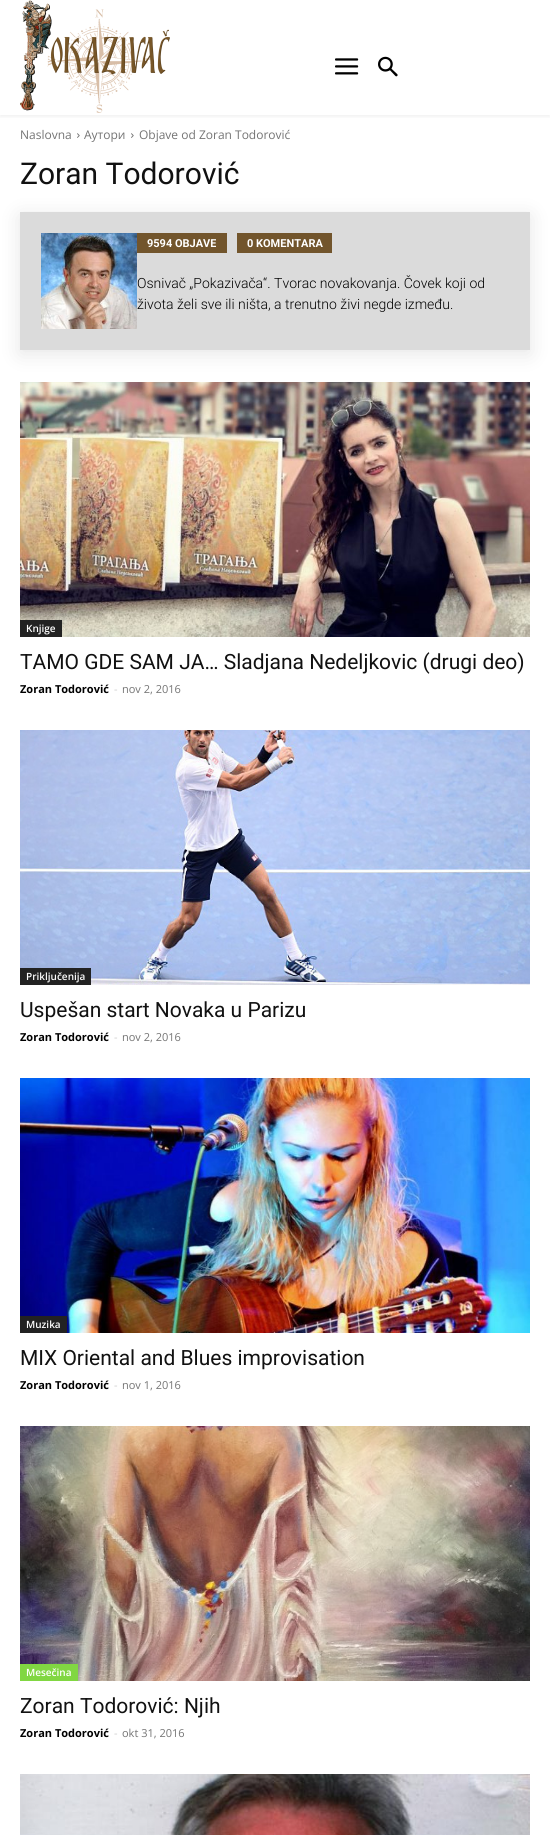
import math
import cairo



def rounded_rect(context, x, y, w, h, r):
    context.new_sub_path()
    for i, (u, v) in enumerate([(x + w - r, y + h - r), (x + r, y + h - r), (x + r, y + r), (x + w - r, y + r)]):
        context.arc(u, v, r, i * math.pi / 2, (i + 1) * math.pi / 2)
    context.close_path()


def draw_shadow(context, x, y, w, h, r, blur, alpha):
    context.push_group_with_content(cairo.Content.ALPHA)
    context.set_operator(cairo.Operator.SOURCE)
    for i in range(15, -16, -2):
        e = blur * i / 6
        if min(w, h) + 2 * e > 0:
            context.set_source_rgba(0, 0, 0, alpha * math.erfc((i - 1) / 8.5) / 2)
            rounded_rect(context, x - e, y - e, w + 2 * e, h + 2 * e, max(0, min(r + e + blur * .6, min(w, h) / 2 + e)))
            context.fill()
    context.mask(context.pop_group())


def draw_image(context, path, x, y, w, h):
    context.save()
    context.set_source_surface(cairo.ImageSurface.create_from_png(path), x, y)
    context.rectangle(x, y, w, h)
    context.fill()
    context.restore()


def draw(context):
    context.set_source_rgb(1, 1, 1)
    context.paint()
    draw_image(context, "images/1.png", 20, 0, 150, 113)
    draw_image(context, "images/2.png", 335, 58, 24, 17)
    draw_image(context, "images/3.png", 378, 56, 20, 21)
    context.save()
    context.rectangle(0, 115, 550, 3)
    context.clip()
    context.set_source_rgb(0, 0, 0)
    draw_shadow(context, 0, 2, 550, 115, 0, 2, 0.06)
    context.restore()
    draw_image(context, "images/4.png", 77, 133, 3, 5)
    draw_image(context, "images/4.png", 131, 133, 3, 5)
    context.set_source_rgb(0, 0, 0)
    draw_shadow(context, 20, 216, 510, 138, 0, 10, 0.1)
    context.set_source_rgb(219 / 255, 219 / 255, 219 / 255)
    context.rectangle(20, 212, 510, 138)
    context.fill()
    draw_image(context, "images/5.png", 41, 233, 96, 96)
    context.set_source_rgb(114 / 255, 85 / 255, 44 / 255)
    context.rectangle(137, 233, 90, 20)
    context.fill()
    context.rectangle(237, 233, 95, 20)
    context.fill()
    draw_image(context, "images/6.png", 20, 382, 510, 255)
    context.set_source_rgb(34 / 255, 34 / 255, 34 / 255)
    context.rectangle(20, 620, 42, 17)
    context.fill()
    draw_image(context, "images/7.png", 20, 730, 510, 255)
    context.rectangle(20, 968, 71, 17)
    context.fill()
    draw_image(context, "images/8.png", 20, 1078, 510, 255)
    context.rectangle(20, 1316, 47, 17)
    context.fill()
    draw_image(context, "images/9.png", 20, 1426, 510, 255)
    context.set_source_rgb(129 / 255, 215 / 255, 66 / 255)
    context.rectangle(20, 1664, 58, 17)
    context.fill()
    draw_image(context, "images/10.png", 20, 1774, 510, 61)
    context.select_font_face("Open Sans")
    context.set_font_size(12)
    context.set_source_rgb(116 / 255, 116 / 255, 116 / 255)
    context.move_to(20, 139)
    context.show_text("Naslovna")
    context.move_to(84, 139)
    context.show_text("Аутори")
    context.move_to(139, 139)
    context.show_text("Objave od Zoran Todorović")
    context.select_font_face("Roboto")
    context.set_font_size(30)
    context.set_source_rgb(17 / 255, 17 / 255, 17 / 255)
    context.move_to(20, 184)
    context.show_text("Zoran Todorović")
    context.select_font_face("Roboto", cairo.FontSlant.NORMAL, cairo.FontWeight.BOLD)
    context.set_font_size(11)
    context.set_source_rgb(1, 1, 1)
    context.move_to(147, 247)
    context.show_text("9594 OBJAVE")
    context.move_to(247, 247)
    context.show_text("0 KOMENTARA")
    context.select_font_face("Roboto Light")
    context.set_font_size(14)
    context.set_source_rgb(0, 0, 0)
    context.move_to(137, 288)
    context.show_text("Osnivač „Pokazivača“. Tvorac novakovanja. Čovek koji od")
    context.move_to(137, 309)
    context.show_text("života želi sve ili ništa, a trenutno živi negde između.")
    context.select_font_face("Open Sans SemiBold")
    context.set_font_size(10)
    context.set_source_rgb(1, 1, 1)
    context.move_to(26, 632)
    context.show_text("Knjige")
    context.select_font_face("Roboto")
    context.set_font_size(21)
    context.set_source_rgb(17 / 255, 17 / 255, 17 / 255)
    context.move_to(20, 669)
    context.show_text("TAMO GDE SAM JA… Sladjana Nedeljkovic (drugi deo)")
    context.select_font_face("Open Sans", cairo.FontSlant.NORMAL, cairo.FontWeight.BOLD)
    context.set_font_size(11)
    context.set_source_rgb(0, 0, 0)
    context.move_to(20, 693)
    context.show_text("Zoran Todorović")
    context.select_font_face("Open Sans")
    context.set_source_rgb(204 / 255, 204 / 255, 204 / 255)
    context.move_to(114, 693)
    context.show_text("-")
    context.set_source_rgb(116 / 255, 116 / 255, 116 / 255)
    context.move_to(122, 693)
    context.show_text("nov 2, 2016")
    context.select_font_face("Open Sans SemiBold")
    context.set_font_size(10)
    context.set_source_rgb(1, 1, 1)
    context.move_to(26, 980)
    context.show_text("Priključenija")
    context.select_font_face("Roboto")
    context.set_font_size(21)
    context.set_source_rgb(17 / 255, 17 / 255, 17 / 255)
    context.move_to(20, 1017)
    context.show_text("Uspešan start Novaka u Parizu")
    context.select_font_face("Open Sans", cairo.FontSlant.NORMAL, cairo.FontWeight.BOLD)
    context.set_font_size(11)
    context.set_source_rgb(0, 0, 0)
    context.move_to(20, 1041)
    context.show_text("Zoran Todorović")
    context.select_font_face("Open Sans")
    context.set_source_rgb(204 / 255, 204 / 255, 204 / 255)
    context.move_to(114, 1041)
    context.show_text("-")
    context.set_source_rgb(116 / 255, 116 / 255, 116 / 255)
    context.move_to(122, 1041)
    context.show_text("nov 2, 2016")
    context.select_font_face("Open Sans SemiBold")
    context.set_font_size(10)
    context.set_source_rgb(1, 1, 1)
    context.move_to(26, 1328)
    context.show_text("Muzika")
    context.select_font_face("Roboto")
    context.set_font_size(21)
    context.set_source_rgb(17 / 255, 17 / 255, 17 / 255)
    context.move_to(20, 1365)
    context.show_text("MIX Oriental and Blues improvisation")
    context.select_font_face("Open Sans", cairo.FontSlant.NORMAL, cairo.FontWeight.BOLD)
    context.set_font_size(11)
    context.set_source_rgb(0, 0, 0)
    context.move_to(20, 1389)
    context.show_text("Zoran Todorović")
    context.select_font_face("Open Sans")
    context.set_source_rgb(204 / 255, 204 / 255, 204 / 255)
    context.move_to(114, 1389)
    context.show_text("-")
    context.set_source_rgb(116 / 255, 116 / 255, 116 / 255)
    context.move_to(122, 1389)
    context.show_text("nov 1, 2016")
    context.select_font_face("Open Sans SemiBold")
    context.set_font_size(10)
    context.set_source_rgb(1, 1, 1)
    context.move_to(26, 1676)
    context.show_text("Mesečina")
    context.select_font_face("Roboto")
    context.set_font_size(21)
    context.set_source_rgb(17 / 255, 17 / 255, 17 / 255)
    context.move_to(20, 1713)
    context.show_text("Zoran Todorović: Njih")
    context.select_font_face("Open Sans", cairo.FontSlant.NORMAL, cairo.FontWeight.BOLD)
    context.set_font_size(11)
    context.set_source_rgb(0, 0, 0)
    context.move_to(20, 1737)
    context.show_text("Zoran Todorović")
    context.select_font_face("Open Sans")
    context.set_source_rgb(204 / 255, 204 / 255, 204 / 255)
    context.move_to(114, 1737)
    context.show_text("-")
    context.set_source_rgb(116 / 255, 116 / 255, 116 / 255)
    context.move_to(122, 1737)
    context.show_text("okt 31, 2016")


surface = cairo.ImageSurface(cairo.Format.RGB24, 550, 1835)
context = cairo.Context(surface)
options = cairo.FontOptions()
options.set_hint_metrics(cairo.HintMetrics.OFF)
options.set_hint_style(cairo.HintStyle.NONE)
context.set_font_options(options)
context.set_miter_limit(4)
draw(context)
surface.write_to_png("out.png")
